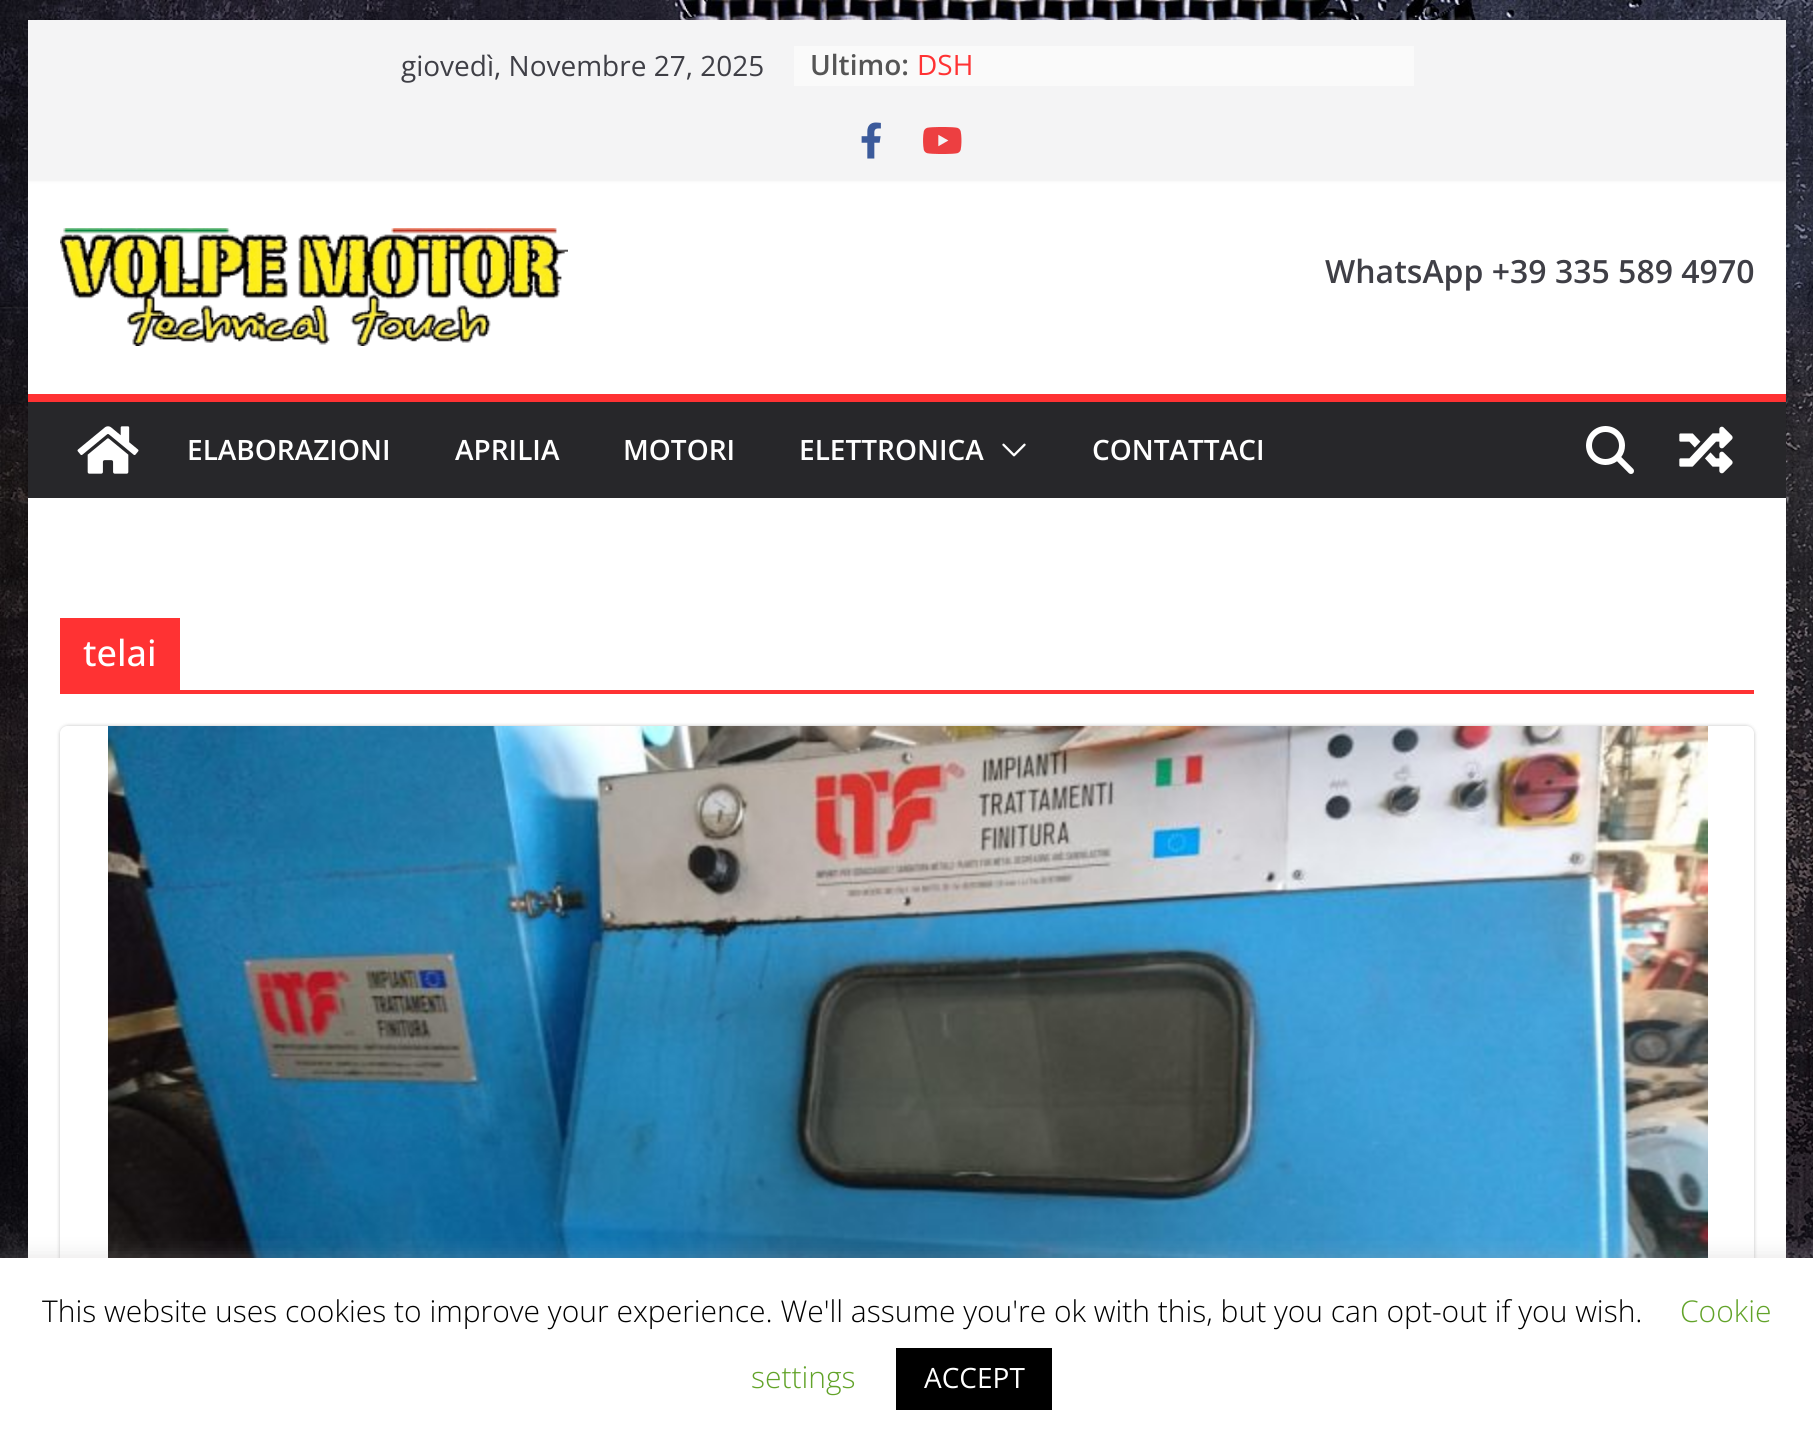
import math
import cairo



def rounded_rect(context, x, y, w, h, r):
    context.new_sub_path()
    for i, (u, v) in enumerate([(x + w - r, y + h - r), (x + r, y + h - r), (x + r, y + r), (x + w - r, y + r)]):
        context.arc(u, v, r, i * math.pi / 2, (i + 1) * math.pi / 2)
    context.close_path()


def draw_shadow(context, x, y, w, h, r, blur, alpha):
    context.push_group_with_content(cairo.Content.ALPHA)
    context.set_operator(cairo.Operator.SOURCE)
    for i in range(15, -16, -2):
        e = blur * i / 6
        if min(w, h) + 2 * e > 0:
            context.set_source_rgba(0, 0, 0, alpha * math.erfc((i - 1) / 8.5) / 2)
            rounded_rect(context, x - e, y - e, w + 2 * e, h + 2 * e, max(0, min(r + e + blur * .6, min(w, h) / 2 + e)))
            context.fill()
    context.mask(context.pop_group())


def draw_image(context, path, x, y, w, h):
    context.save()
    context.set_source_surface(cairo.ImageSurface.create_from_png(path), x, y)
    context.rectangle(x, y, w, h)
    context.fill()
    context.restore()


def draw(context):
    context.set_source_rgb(1, 1, 1)
    context.paint()
    draw_image(context, "images/1.png", 0, 0, 1813, 1258)
    context.set_source_rgb(1, 1, 1)
    context.rectangle(28, 180, 1758, 214)
    context.fill()
    context.set_source_rgb(0, 0, 0)
    draw_shadow(context, 28, 20, 1758, 160, 0, 2, 0.1)
    context.set_source_rgb(244 / 255, 244 / 255, 245 / 255)
    context.rectangle(28, 20, 1758, 160)
    context.fill()
    context.set_source_rgb(250 / 255, 250 / 255, 250 / 255)
    context.rectangle(794, 46, 620, 40)
    context.fill()
    draw_image(context, "images/2.png", 861, 122, 20, 37)
    draw_image(context, "images/3.png", 923, 127, 39, 27)
    draw_image(context, "images/4.png", 60, 228, 508, 118)
    context.set_source_rgb(39 / 255, 39 / 255, 42 / 255)
    context.rectangle(28, 402, 1758, 96)
    context.fill()
    context.set_source_rgb(1, 50 / 255, 51 / 255)
    context.rectangle(28, 394, 1758, 8)
    context.fill()
    draw_image(context, "images/5.png", 77, 426, 62, 48)
    draw_image(context, "images/6.png", 1002, 443, 24, 14)
    draw_image(context, "images/7.png", 1586, 426, 48, 48)
    draw_image(context, "images/8.png", 1679, 426, 54, 48)
    context.set_source_rgb(1, 1, 1)
    context.rectangle(28, 498, 1758, 760)
    context.fill()
    context.set_source_rgb(1, 50 / 255, 51 / 255)
    context.rectangle(60, 690, 1694, 4)
    context.fill()
    context.rectangle(60, 618, 120, 72)
    context.fill()
    context.save()
    context.set_fill_rule(cairo.FillRule.EVEN_ODD)
    context.new_path()
    context.move_to(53, 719)
    context.line_to(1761, 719)
    context.line_to(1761, 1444)
    context.line_to(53, 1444)
    context.close_path()
    context.move_to(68, 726)
    context.line_to(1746, 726)
    context.curve_to(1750.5, 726, 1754, 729.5, 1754, 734)
    context.line_to(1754, 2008)
    context.curve_to(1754, 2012.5, 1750.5, 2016, 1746, 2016)
    context.line_to(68, 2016)
    context.curve_to(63.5, 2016, 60, 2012.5, 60, 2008)
    context.line_to(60, 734)
    context.curve_to(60, 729.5, 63.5, 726, 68, 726)
    context.close_path()
    context.clip()
    context.set_source_rgb(0, 0, 0)
    draw_shadow(context, 60, 726, 1694, 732, 8, 2, 0.24)
    context.restore()
    draw_image(context, "images/9.png", 108, 726, 1600, 532)
    context.set_source_rgb(172 / 255, 171 / 255, 171 / 255)
    draw_shadow(context, 0, 1256, 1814, 186, 0, 10, 0.3)
    context.set_source_rgb(1, 1, 1)
    context.rectangle(0, 1258, 1813, 186)
    context.fill()
    context.set_source_rgb(0, 0, 0)
    context.rectangle(896, 1348, 156, 62)
    context.fill()
    context.select_font_face("Open Sans")
    context.set_font_size(28)
    context.set_source_rgb(63 / 255, 63 / 255, 70 / 255)
    context.move_to(401, 76)
    context.show_text("giovedì, Novembre 27, 2025")
    context.select_font_face("Open Sans SemiBold")
    context.set_source_rgb(85 / 255, 85 / 255, 85 / 255)
    context.move_to(810, 75)
    context.show_text("Ultimo:")
    context.select_font_face("Open Sans")
    context.set_source_rgb(1, 50 / 255, 51 / 255)
    context.move_to(917, 75)
    context.show_text("DSH")
    context.select_font_face("Open Sans SemiBold")
    context.set_font_size(32)
    context.set_source_rgb(63 / 255, 63 / 255, 70 / 255)
    context.move_to(1325, 283)
    context.show_text("WhatsApp +39 335 589 4970")
    context.set_font_size(28)
    context.set_source_rgb(1, 1, 1)
    context.move_to(187, 460)
    context.show_text("ELABORAZIONI")
    context.move_to(455, 460)
    context.show_text("APRILIA")
    context.move_to(623, 460)
    context.show_text("MOTORI")
    context.move_to(799, 460)
    context.show_text("ELETTRONICA")
    context.move_to(1092, 460)
    context.show_text("CONTATTACI")
    context.select_font_face("Open Sans Medium")
    context.set_font_size(36)
    context.move_to(83, 666)
    context.show_text("telai")
    context.select_font_face("Open Sans Light")
    context.set_font_size(30)
    context.set_source_rgb(0, 0, 0)
    context.move_to(42, 1322)
    context.show_text("This website uses cookies to improve your experience. We'll assume you're ok with this, but you can opt-out if you wish.")
    context.set_source_rgb(98 / 255, 163 / 255, 41 / 255)
    context.move_to(1680, 1322)
    context.show_text("Cookie")
    context.move_to(751, 1388)
    context.show_text("settings")
    context.select_font_face("Open Sans")
    context.set_font_size(28)
    context.set_source_rgb(1, 1, 1)
    context.move_to(924, 1388)
    context.show_text("ACCEPT")


surface = cairo.ImageSurface(cairo.Format.RGB24, 1813, 1444)
context = cairo.Context(surface)
options = cairo.FontOptions()
options.set_hint_metrics(cairo.HintMetrics.OFF)
options.set_hint_style(cairo.HintStyle.NONE)
context.set_font_options(options)
context.set_miter_limit(4)
draw(context)
surface.write_to_png("out.png")
